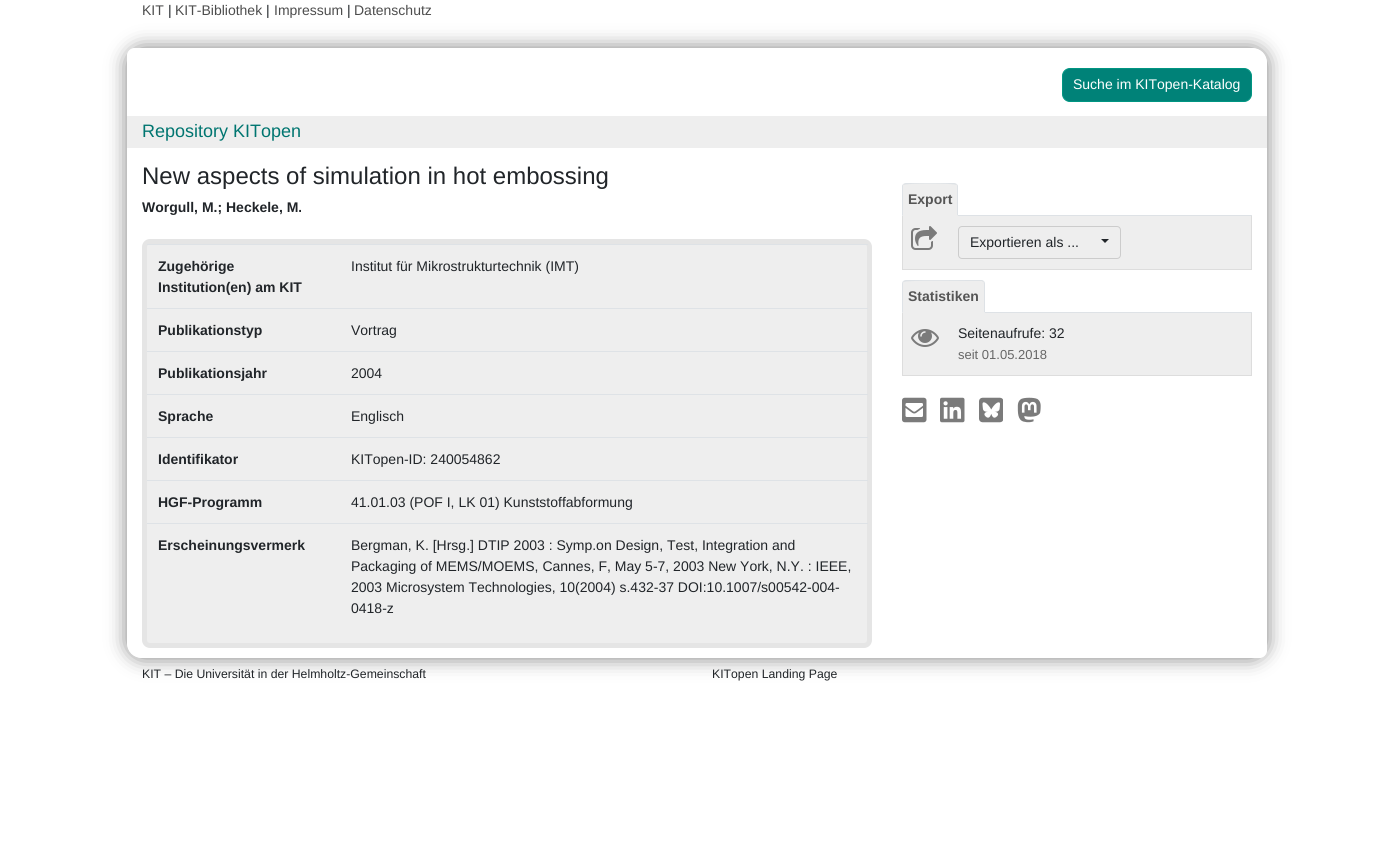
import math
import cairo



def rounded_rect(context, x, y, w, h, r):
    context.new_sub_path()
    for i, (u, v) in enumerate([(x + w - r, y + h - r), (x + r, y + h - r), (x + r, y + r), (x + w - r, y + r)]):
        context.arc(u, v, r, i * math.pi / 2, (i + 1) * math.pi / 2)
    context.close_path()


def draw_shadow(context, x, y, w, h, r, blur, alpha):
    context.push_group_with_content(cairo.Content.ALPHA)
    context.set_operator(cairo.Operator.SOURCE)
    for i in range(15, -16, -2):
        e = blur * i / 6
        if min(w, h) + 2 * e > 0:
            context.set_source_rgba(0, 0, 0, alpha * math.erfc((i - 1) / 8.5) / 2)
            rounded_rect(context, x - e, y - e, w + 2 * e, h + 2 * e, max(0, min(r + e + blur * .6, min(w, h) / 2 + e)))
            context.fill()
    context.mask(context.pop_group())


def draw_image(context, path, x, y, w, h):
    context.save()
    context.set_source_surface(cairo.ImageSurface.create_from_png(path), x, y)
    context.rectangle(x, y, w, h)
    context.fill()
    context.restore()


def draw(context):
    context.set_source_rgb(1, 1, 1)
    context.paint()
    context.save()
    context.set_fill_rule(cairo.FillRule.EVEN_ODD)
    context.new_path()
    context.move_to(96, 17)
    context.line_to(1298, 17)
    context.line_to(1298, 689)
    context.line_to(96, 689)
    context.close_path()
    context.move_to(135, 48)
    context.line_to(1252, 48)
    context.curve_to(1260.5, 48, 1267, 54.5, 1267, 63)
    context.line_to(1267, 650)
    context.curve_to(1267, 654.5, 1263.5, 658, 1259, 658)
    context.line_to(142, 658)
    context.curve_to(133.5, 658, 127, 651.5, 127, 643)
    context.line_to(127, 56)
    context.curve_to(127, 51.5, 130.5, 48, 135, 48)
    context.close_path()
    context.clip()
    context.set_source_rgb(128 / 255, 128 / 255, 128 / 255)
    draw_shadow(context, 127, 48, 1140, 610, 15, 10, 1)
    context.restore()
    context.set_source_rgb(0, 130 / 255, 120 / 255)
    rounded_rect(context, 1062.5, 68.5, 189, 33, 7.5)
    context.fill_preserve()
    context.set_source_rgb(0, 150 / 255, 130 / 255)
    context.set_line_width(1)
    context.stroke()
    context.set_source_rgb(238 / 255, 238 / 255, 238 / 255)
    context.rectangle(127, 116, 1140, 32)
    context.fill()
    rounded_rect(context, 144.5, 241.5, 725, 404, 5.5)
    context.fill_preserve()
    context.set_source_rgb(229 / 255, 229 / 255, 229 / 255)
    context.set_line_width(5)
    context.stroke()
    context.set_source_rgb(222 / 255, 226 / 255, 230 / 255)
    context.rectangle(147, 244, 721, 1)
    context.fill()
    context.rectangle(147, 308, 721, 1)
    context.fill()
    context.rectangle(147, 351, 721, 1)
    context.fill()
    context.rectangle(147, 394, 721, 1)
    context.fill()
    context.rectangle(147, 437, 721, 1)
    context.fill()
    context.rectangle(147, 480, 721, 1)
    context.fill()
    context.rectangle(147, 523, 721, 1)
    context.fill()
    context.rectangle(958, 215, 294, 1)
    context.fill()
    context.set_source_rgb(238 / 255, 238 / 255, 238 / 255)
    context.new_path()
    context.move_to(906, 183)
    context.line_to(954, 183)
    context.curve_to(956, 183, 958, 185, 958, 187)
    context.line_to(958, 216)
    context.line_to(902, 216)
    context.line_to(902, 187)
    context.curve_to(902, 185, 904, 183, 906, 183)
    context.close_path()
    context.fill()
    context.set_source_rgb(222 / 255, 226 / 255, 230 / 255)
    context.new_path()
    context.move_to(906, 183)
    context.line_to(903, 184)
    context.line_to(904, 185)
    context.curve_to(905, 183, 955, 183, 956, 185)
    context.line_to(957, 184)
    context.line_to(954, 183)
    context.close_path()
    context.fill()
    context.new_path()
    context.move_to(958, 216)
    context.line_to(958, 186)
    context.line_to(957, 184)
    context.line_to(956.5, 184.5)
    context.line_to(957, 185.5)
    context.line_to(957, 215)
    context.close_path()
    context.fill()
    context.set_source_rgb(238 / 255, 238 / 255, 238 / 255)
    context.new_path()
    context.move_to(958, 216)
    context.line_to(957, 215)
    context.line_to(903, 215)
    context.line_to(902, 216)
    context.close_path()
    context.fill()
    context.set_source_rgb(222 / 255, 226 / 255, 230 / 255)
    context.new_path()
    context.move_to(902, 216)
    context.line_to(903, 215)
    context.line_to(903, 185.5)
    context.line_to(903.5, 184.5)
    context.line_to(903, 184)
    context.line_to(902, 186)
    context.close_path()
    context.fill()
    context.set_source_rgb(238 / 255, 238 / 255, 238 / 255)
    context.rectangle(903, 216, 348, 53)
    context.fill()
    context.set_source_rgb(221 / 255, 221 / 255, 221 / 255)
    context.rectangle(1251, 216, 1, 54)
    context.fill()
    context.rectangle(902, 269, 350, 1)
    context.fill()
    context.rectangle(902, 216, 1, 54)
    context.fill()
    draw_image(context, "images/1.png", 911, 226, 26, 24)
    rounded_rect(context, 958.5, 226.5, 162, 32, 3.5)
    context.set_source_rgb(204 / 255, 204 / 255, 204 / 255)
    context.set_line_width(1)
    context.stroke()
    context.set_source_rgb(33 / 255, 37 / 255, 41 / 255)
    context.new_path()
    context.move_to(1101, 239)
    context.line_to(1109, 239)
    context.line_to(1105, 243)
    context.close_path()
    context.fill()
    context.set_source_rgb(222 / 255, 226 / 255, 230 / 255)
    context.rectangle(985, 312, 267, 1)
    context.fill()
    context.set_source_rgb(238 / 255, 238 / 255, 238 / 255)
    context.new_path()
    context.move_to(906, 280)
    context.line_to(981, 280)
    context.curve_to(983, 280, 985, 282, 985, 284)
    context.line_to(985, 313)
    context.line_to(902, 313)
    context.line_to(902, 284)
    context.curve_to(902, 282, 904, 280, 906, 280)
    context.close_path()
    context.fill()
    context.set_source_rgb(222 / 255, 226 / 255, 230 / 255)
    context.new_path()
    context.move_to(906, 280)
    context.line_to(903, 281)
    context.line_to(904, 282)
    context.curve_to(906, 280, 962, 281, 969, 281)
    context.line_to(982, 281)
    context.line_to(983, 282)
    context.line_to(984, 281)
    context.line_to(982, 280)
    context.close_path()
    context.fill()
    context.new_path()
    context.move_to(985, 313)
    context.line_to(985, 284)
    context.curve_to(985, 283, 984.5, 282, 984, 281)
    context.line_to(983.5, 281.5)
    context.curve_to(983.5, 282, 984, 283, 984, 284)
    context.line_to(984, 312)
    context.close_path()
    context.fill()
    context.set_source_rgb(238 / 255, 238 / 255, 238 / 255)
    context.new_path()
    context.move_to(985, 313)
    context.line_to(984, 312)
    context.line_to(903, 312)
    context.line_to(902, 313)
    context.close_path()
    context.fill()
    context.set_source_rgb(222 / 255, 226 / 255, 230 / 255)
    context.new_path()
    context.move_to(902, 313)
    context.line_to(903, 312)
    context.line_to(903, 284)
    context.curve_to(903, 283, 903, 282, 904, 282)
    context.line_to(903, 281)
    context.curve_to(902.5, 282, 902, 283, 902, 284)
    context.close_path()
    context.fill()
    context.set_source_rgb(238 / 255, 238 / 255, 238 / 255)
    context.rectangle(903, 313, 348, 62)
    context.fill()
    context.set_source_rgb(221 / 255, 221 / 255, 221 / 255)
    context.rectangle(1251, 313, 1, 63)
    context.fill()
    context.rectangle(902, 375, 350, 1)
    context.fill()
    context.rectangle(902, 313, 1, 63)
    context.fill()
    draw_image(context, "images/2.png", 911, 329, 28, 18)
    draw_image(context, "images/3.png", 902, 397, 25, 26)
    draw_image(context, "images/4.png", 940, 397, 25, 26)
    draw_image(context, "images/5.png", 979, 397, 24, 26)
    draw_image(context, "images/6.png", 1017, 397, 24, 26)
    context.select_font_face("Liberation Sans")
    context.set_font_size(14)
    context.set_source_rgb(77 / 255, 77 / 255, 77 / 255)
    context.move_to(142, 15)
    context.show_text("KIT")
    context.set_source_rgb(33 / 255, 37 / 255, 41 / 255)
    context.move_to(168, 15)
    context.show_text("|")
    context.set_source_rgb(77 / 255, 77 / 255, 77 / 255)
    context.move_to(175, 15)
    context.show_text("KIT-Bibliothek")
    context.set_source_rgb(33 / 255, 37 / 255, 41 / 255)
    context.move_to(266, 15)
    context.show_text("|")
    context.set_source_rgb(77 / 255, 77 / 255, 77 / 255)
    context.move_to(274, 15)
    context.show_text("Impressum")
    context.set_source_rgb(33 / 255, 37 / 255, 41 / 255)
    context.move_to(347, 15)
    context.show_text("|")
    context.set_source_rgb(77 / 255, 77 / 255, 77 / 255)
    context.move_to(354, 15)
    context.show_text("Datenschutz")
    context.set_source_rgb(1, 1, 1)
    context.move_to(1073, 89)
    context.show_text("Suche im KITopen-Katalog")
    context.set_font_size(18)
    context.set_source_rgb(0, 117 / 255, 112 / 255)
    context.move_to(142, 137)
    context.show_text("Repository KITopen")
    context.set_font_size(24)
    context.set_source_rgb(33 / 255, 37 / 255, 41 / 255)
    context.move_to(142, 184)
    context.show_text("New aspects of simulation in hot embossing")
    context.select_font_face("Liberation Sans", cairo.FontSlant.NORMAL, cairo.FontWeight.BOLD)
    context.set_font_size(14)
    context.move_to(142, 212)
    context.show_text("Worgull, M.; Heckele, M.")
    context.move_to(158, 271)
    context.show_text("Zugehörige")
    context.move_to(158, 292)
    context.show_text("Institution(en) am KIT")
    context.select_font_face("Liberation Sans")
    context.move_to(351, 271)
    context.show_text("Institut für Mikrostrukturtechnik (IMT)")
    context.select_font_face("Liberation Sans", cairo.FontSlant.NORMAL, cairo.FontWeight.BOLD)
    context.move_to(158, 335)
    context.show_text("Publikationstyp")
    context.select_font_face("Liberation Sans")
    context.move_to(351, 335)
    context.show_text("Vortrag")
    context.select_font_face("Liberation Sans", cairo.FontSlant.NORMAL, cairo.FontWeight.BOLD)
    context.move_to(158, 378)
    context.show_text("Publikationsjahr")
    context.select_font_face("Liberation Sans")
    context.move_to(351, 378)
    context.show_text("2004")
    context.select_font_face("Liberation Sans", cairo.FontSlant.NORMAL, cairo.FontWeight.BOLD)
    context.move_to(158, 421)
    context.show_text("Sprache")
    context.select_font_face("Liberation Sans")
    context.move_to(351, 421)
    context.show_text("Englisch")
    context.select_font_face("Liberation Sans", cairo.FontSlant.NORMAL, cairo.FontWeight.BOLD)
    context.move_to(158, 464)
    context.show_text("Identifikator")
    context.select_font_face("Liberation Sans")
    context.move_to(351, 464)
    context.show_text("KITopen-ID: 240054862")
    context.select_font_face("Liberation Sans", cairo.FontSlant.NORMAL, cairo.FontWeight.BOLD)
    context.move_to(158, 507)
    context.show_text("HGF-Programm")
    context.select_font_face("Liberation Sans")
    context.move_to(351, 507)
    context.show_text("41.01.03 (POF I, LK 01) Kunststoffabformung")
    context.select_font_face("Liberation Sans", cairo.FontSlant.NORMAL, cairo.FontWeight.BOLD)
    context.move_to(158, 550)
    context.show_text("Erscheinungsvermerk")
    context.select_font_face("Liberation Sans")
    context.move_to(351, 550)
    context.show_text("Bergman, K. [Hrsg.] DTIP 2003 : Symp.on Design, Test, Integration and")
    context.move_to(351, 571)
    context.show_text("Packaging of MEMS/MOEMS, Cannes, F, May 5-7, 2003 New York, N.Y. : IEEE,")
    context.move_to(351, 592)
    context.show_text("2003 Microsystem Technologies, 10(2004) s.432-37 DOI:10.1007/s00542-004-")
    context.move_to(351, 613)
    context.show_text("0418-z")
    context.select_font_face("Liberation Sans", cairo.FontSlant.NORMAL, cairo.FontWeight.BOLD)
    context.set_source_rgb(85 / 255, 85 / 255, 85 / 255)
    context.move_to(908, 204)
    context.show_text("Export")
    context.select_font_face("Liberation Sans")
    context.set_source_rgb(33 / 255, 37 / 255, 41 / 255)
    context.move_to(970, 247)
    context.show_text("Exportieren als ...")
    context.select_font_face("Liberation Sans", cairo.FontSlant.NORMAL, cairo.FontWeight.BOLD)
    context.set_source_rgb(85 / 255, 85 / 255, 85 / 255)
    context.move_to(908, 301)
    context.show_text("Statistiken")
    context.select_font_face("Liberation Sans")
    context.set_source_rgb(33 / 255, 37 / 255, 41 / 255)
    context.move_to(958, 338)
    context.show_text("Seitenaufrufe: 32")
    context.set_font_size(13)
    context.set_source_rgb(102 / 255, 102 / 255, 102 / 255)
    context.move_to(958, 359)
    context.show_text("seit 01.05.2018")
    context.set_font_size(12.25)
    context.set_source_rgb(33 / 255, 37 / 255, 41 / 255)
    context.move_to(142, 678)
    context.show_text("KIT – Die Universität in der Helmholtz-Gemeinschaft")
    context.move_to(712, 678)
    context.show_text("KITopen Landing Page")


surface = cairo.ImageSurface(cairo.Format.RGB24, 1394, 851)
context = cairo.Context(surface)
options = cairo.FontOptions()
options.set_hint_metrics(cairo.HintMetrics.OFF)
options.set_hint_style(cairo.HintStyle.NONE)
context.set_font_options(options)
context.set_miter_limit(4)
draw(context)
surface.write_to_png("out.png")
